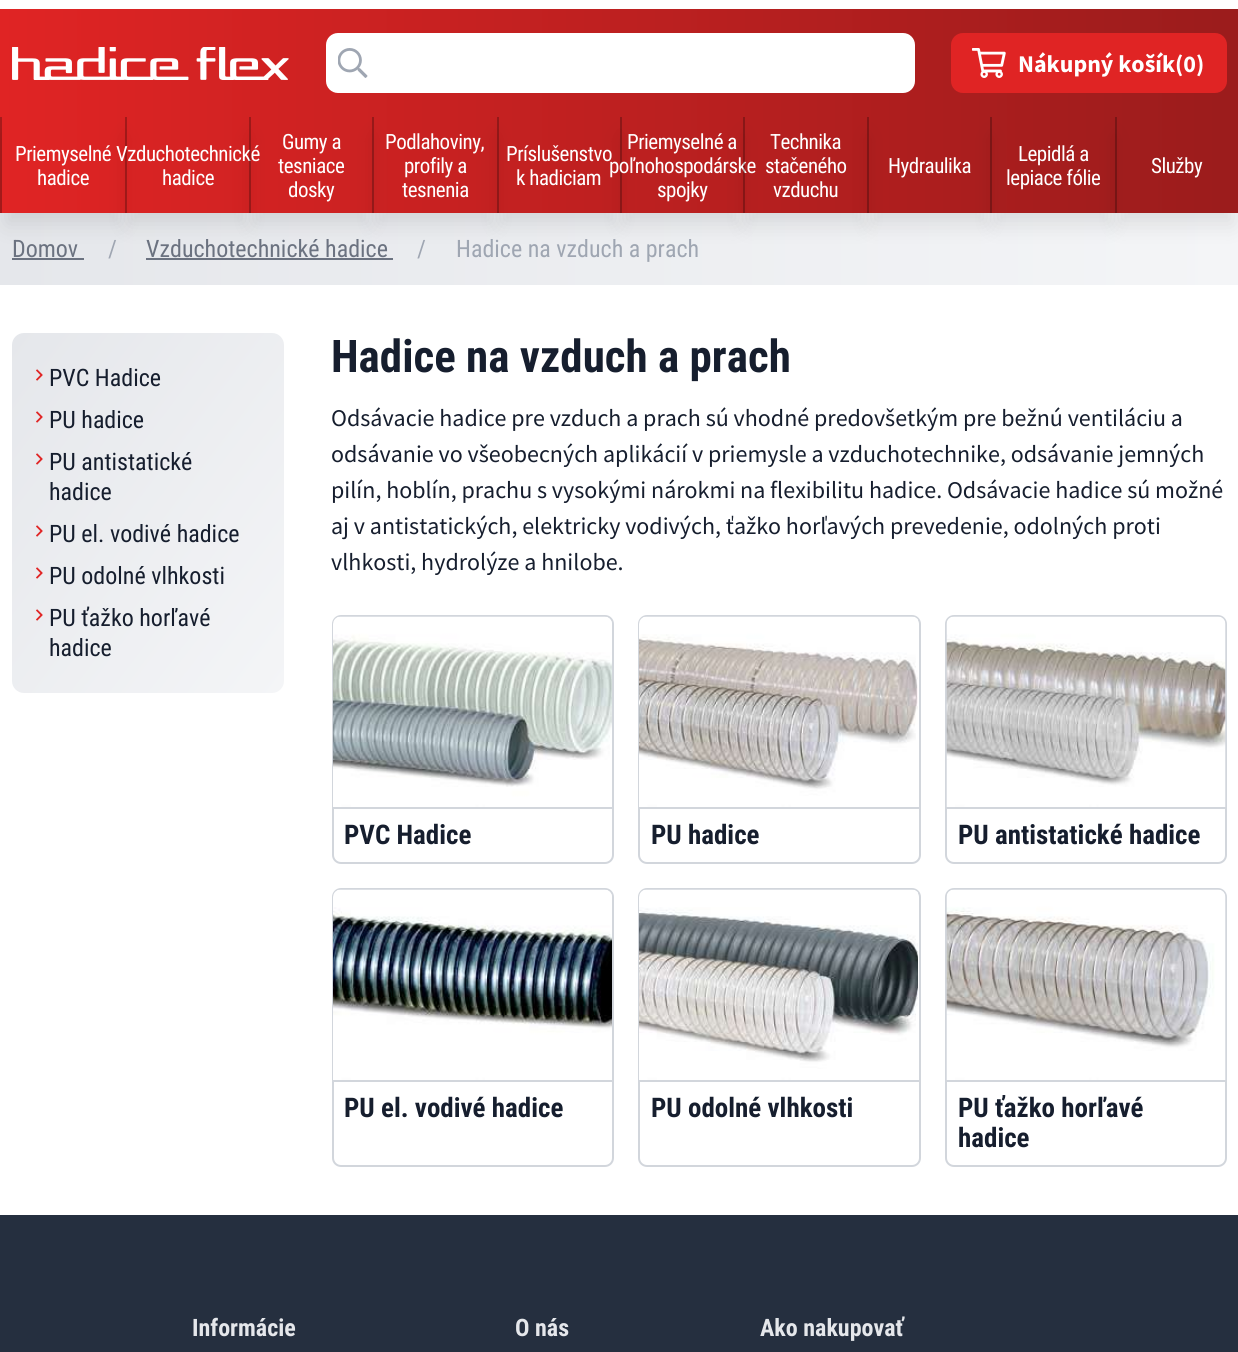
import math
import cairo



def draw_spaced(context, x, y, s, letter, word):
    context.move_to(x, y)
    for ch in s:
        context.show_text(ch)
        context.rel_move_to(letter + word * (ch == ' '), 0)


def rounded_rect(context, x, y, w, h, r):
    context.new_sub_path()
    for i, (u, v) in enumerate([(x + w - r, y + h - r), (x + r, y + h - r), (x + r, y + r), (x + w - r, y + r)]):
        context.arc(u, v, r, i * math.pi / 2, (i + 1) * math.pi / 2)
    context.close_path()


def draw_shadow(context, x, y, w, h, r, blur, alpha):
    context.push_group_with_content(cairo.Content.ALPHA)
    context.set_operator(cairo.Operator.SOURCE)
    for i in range(15, -16, -2):
        e = blur * i / 6
        if min(w, h) + 2 * e > 0:
            context.set_source_rgba(0, 0, 0, alpha * math.erfc((i - 1) / 8.5) / 2)
            rounded_rect(context, x - e, y - e, w + 2 * e, h + 2 * e, max(0, min(r + e + blur * .6, min(w, h) / 2 + e)))
            context.fill()
    context.mask(context.pop_group())


def draw_image(context, path, x, y, w, h):
    context.save()
    context.set_source_surface(cairo.ImageSurface.create_from_png(path), x, y)
    context.rectangle(x, y, w, h)
    context.fill()
    context.restore()


def draw(context):
    context.set_source_rgb(1, 1, 1)
    context.paint()
    gradient = cairo.LinearGradient(0, 111, 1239, 111)
    gradient.add_color_stop_rgba(0, 224 / 255, 36 / 255, 36 / 255, 1)
    gradient.add_color_stop_rgba(1, 155 / 255, 28 / 255, 28 / 255, 1)
    context.set_source(gradient)
    context.rectangle(0, 9, 1238, 204)
    context.fill()
    draw_image(context, "images/1.png", 12, 47, 277, 33)
    context.set_source_rgb(1, 1, 1)
    rounded_rect(context, 326, 33, 589, 60, 12)
    context.fill()
    draw_image(context, "images/2.png", 338, 48, 30, 30)
    context.set_source_rgb(224 / 255, 36 / 255, 36 / 255)
    rounded_rect(context, 951, 33, 276, 60, 12)
    context.fill()
    draw_image(context, "images/3.png", 972, 48, 34, 30)
    context.set_source_rgb(168 / 255, 27 / 255, 27 / 255)
    context.rectangle(0, 117, 2, 96)
    context.fill()
    gradient = cairo.LinearGradient(0, 249, 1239, 249)
    gradient.add_color_stop_rgba(0, 229 / 255, 231 / 255, 235 / 255, 1)
    gradient.add_color_stop_rgba(1, 244 / 255, 245 / 255, 247 / 255, 1)
    context.set_source(gradient)
    context.rectangle(0, 213, 1238, 72)
    context.fill()
    context.save()
    context.set_fill_rule(cairo.FillRule.EVEN_ODD)
    context.new_path()
    context.move_to(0, 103)
    context.line_to(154, 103)
    context.line_to(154, 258)
    context.line_to(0, 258)
    context.close_path()
    context.move_to(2, 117)
    context.line_to(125, 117)
    context.line_to(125, 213)
    context.line_to(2, 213)
    context.close_path()
    context.clip()
    context.set_source_rgb(0, 0, 0)
    draw_shadow(context, 6, 137, 114, 87, 0, 11, 0.1)
    context.restore()
    context.save()
    context.set_fill_rule(cairo.FillRule.EVEN_ODD)
    context.new_path()
    context.move_to(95, 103)
    context.line_to(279, 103)
    context.line_to(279, 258)
    context.line_to(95, 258)
    context.close_path()
    context.move_to(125, 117)
    context.line_to(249, 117)
    context.line_to(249, 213)
    context.line_to(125, 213)
    context.close_path()
    context.clip()
    context.set_source_rgb(0, 0, 0)
    draw_shadow(context, 129, 137, 116, 87, 0, 11, 0.1)
    context.restore()
    context.set_source_rgba(0, 0, 0, 0.25)
    context.rectangle(125, 117, 2, 96)
    context.fill()
    context.save()
    context.set_fill_rule(cairo.FillRule.EVEN_ODD)
    context.new_path()
    context.move_to(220, 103)
    context.line_to(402, 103)
    context.line_to(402, 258)
    context.line_to(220, 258)
    context.close_path()
    context.move_to(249, 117)
    context.line_to(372, 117)
    context.line_to(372, 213)
    context.line_to(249, 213)
    context.close_path()
    context.clip()
    context.set_source_rgb(0, 0, 0)
    draw_shadow(context, 254, 137, 114, 87, 0, 11, 0.1)
    context.restore()
    context.save()
    context.set_fill_rule(cairo.FillRule.EVEN_ODD)
    context.new_path()
    context.move_to(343, 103)
    context.line_to(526, 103)
    context.line_to(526, 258)
    context.line_to(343, 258)
    context.close_path()
    context.move_to(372, 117)
    context.line_to(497, 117)
    context.line_to(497, 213)
    context.line_to(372, 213)
    context.close_path()
    context.clip()
    context.set_source_rgb(0, 0, 0)
    draw_shadow(context, 377, 137, 115, 87, 0, 11, 0.1)
    context.restore()
    context.rectangle(372, 117, 2, 96)
    context.fill()
    context.save()
    context.set_fill_rule(cairo.FillRule.EVEN_ODD)
    context.new_path()
    context.move_to(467, 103)
    context.line_to(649, 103)
    context.line_to(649, 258)
    context.line_to(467, 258)
    context.close_path()
    context.move_to(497, 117)
    context.line_to(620, 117)
    context.line_to(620, 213)
    context.line_to(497, 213)
    context.close_path()
    context.clip()
    context.set_source_rgb(0, 0, 0)
    draw_shadow(context, 501, 137, 114, 87, 0, 11, 0.1)
    context.restore()
    context.rectangle(497, 117, 2, 96)
    context.fill()
    context.save()
    context.set_fill_rule(cairo.FillRule.EVEN_ODD)
    context.new_path()
    context.move_to(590, 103)
    context.line_to(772, 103)
    context.line_to(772, 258)
    context.line_to(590, 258)
    context.close_path()
    context.move_to(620, 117)
    context.line_to(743, 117)
    context.line_to(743, 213)
    context.line_to(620, 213)
    context.close_path()
    context.clip()
    context.set_source_rgb(0, 0, 0)
    draw_shadow(context, 624, 137, 114, 87, 0, 11, 0.1)
    context.restore()
    context.rectangle(620, 117, 2, 96)
    context.fill()
    context.save()
    context.set_fill_rule(cairo.FillRule.EVEN_ODD)
    context.new_path()
    context.move_to(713, 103)
    context.line_to(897, 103)
    context.line_to(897, 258)
    context.line_to(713, 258)
    context.close_path()
    context.move_to(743, 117)
    context.line_to(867, 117)
    context.line_to(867, 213)
    context.line_to(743, 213)
    context.close_path()
    context.clip()
    context.set_source_rgb(0, 0, 0)
    draw_shadow(context, 747, 137, 116, 87, 0, 11, 0.1)
    context.restore()
    context.save()
    context.set_fill_rule(cairo.FillRule.EVEN_ODD)
    context.new_path()
    context.move_to(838, 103)
    context.line_to(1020, 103)
    context.line_to(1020, 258)
    context.line_to(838, 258)
    context.close_path()
    context.move_to(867, 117)
    context.line_to(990, 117)
    context.line_to(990, 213)
    context.line_to(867, 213)
    context.close_path()
    context.clip()
    context.set_source_rgb(0, 0, 0)
    draw_shadow(context, 872, 137, 114, 87, 0, 11, 0.1)
    context.restore()
    context.rectangle(867, 117, 2, 96)
    context.fill()
    context.save()
    context.set_fill_rule(cairo.FillRule.EVEN_ODD)
    context.new_path()
    context.move_to(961, 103)
    context.line_to(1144, 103)
    context.line_to(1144, 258)
    context.line_to(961, 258)
    context.close_path()
    context.move_to(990, 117)
    context.line_to(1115, 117)
    context.line_to(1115, 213)
    context.line_to(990, 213)
    context.close_path()
    context.clip()
    context.set_source_rgb(0, 0, 0)
    draw_shadow(context, 995, 137, 115, 87, 0, 11, 0.1)
    context.restore()
    context.rectangle(990, 117, 2, 96)
    context.fill()
    context.save()
    context.set_fill_rule(cairo.FillRule.EVEN_ODD)
    context.new_path()
    context.move_to(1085, 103)
    context.line_to(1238, 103)
    context.line_to(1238, 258)
    context.line_to(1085, 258)
    context.close_path()
    context.move_to(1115, 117)
    context.line_to(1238, 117)
    context.line_to(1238, 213)
    context.line_to(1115, 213)
    context.close_path()
    context.clip()
    context.set_source_rgb(0, 0, 0)
    draw_shadow(context, 1119, 137, 114, 87, 0, 11, 0.1)
    context.restore()
    context.rectangle(1115, 117, 2, 96)
    context.fill()
    context.set_source_rgb(107 / 255, 114 / 255, 128 / 255)
    context.rectangle(12, 258, 72, 2)
    context.fill()
    context.rectangle(146, 258, 247, 2)
    context.fill()
    gradient = cairo.LinearGradient(321, 644, -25, 382)
    gradient.add_color_stop_rgba(0, 244 / 255, 245 / 255, 247 / 255, 1)
    gradient.add_color_stop_rgba(1, 229 / 255, 231 / 255, 235 / 255, 1)
    context.set_source(gradient)
    rounded_rect(context, 12, 333, 272, 360, 12)
    context.fill()
    draw_image(context, "images/4.png", 36, 369, 7, 12)
    draw_image(context, "images/5.png", 36, 411, 7, 12)
    draw_image(context, "images/6.png", 36, 453, 7, 12)
    draw_image(context, "images/7.png", 36, 525, 7, 12)
    draw_image(context, "images/8.png", 36, 567, 7, 12)
    draw_image(context, "images/9.png", 36, 609, 7, 12)
    rounded_rect(context, 333, 616, 280, 247, 8)
    context.set_source_rgb(210 / 255, 214 / 255, 220 / 255)
    context.stroke()
    draw_image(context, "images/10.png", 333, 616, 279, 191)
    context.rectangle(333, 807, 279, 2)
    context.fill()
    rounded_rect(context, 639, 616, 281, 247, 8)
    context.stroke()
    draw_image(context, "images/11.png", 639, 616, 279, 191)
    context.rectangle(639, 807, 281, 2)
    context.fill()
    rounded_rect(context, 946, 616, 280, 247, 8)
    context.stroke()
    draw_image(context, "images/12.png", 946, 616, 280, 191)
    context.rectangle(947, 807, 279, 2)
    context.fill()
    rounded_rect(context, 333, 889, 280, 277, 8)
    context.stroke()
    draw_image(context, "images/13.png", 333, 889, 279, 191)
    context.rectangle(333, 1080, 279, 2)
    context.fill()
    rounded_rect(context, 639, 889, 281, 277, 8)
    context.stroke()
    draw_image(context, "images/14.png", 639, 889, 279, 191)
    context.rectangle(639, 1080, 281, 2)
    context.fill()
    rounded_rect(context, 946, 889, 280, 277, 8)
    context.stroke()
    draw_image(context, "images/15.png", 946, 889, 280, 191)
    context.rectangle(947, 1080, 279, 2)
    context.fill()
    context.set_source_rgb(37 / 255, 47 / 255, 63 / 255)
    context.rectangle(0, 1215, 1238, 137)
    context.fill()
    context.select_font_face("Source Sans Pro", cairo.FontSlant.NORMAL, cairo.FontWeight.BOLD)
    context.set_font_size(24)
    context.set_source_rgb(1, 1, 1)
    context.move_to(1018, 72)
    context.show_text("Nákupný košík(0)")
    context.select_font_face("Roboto Condensed")
    context.set_font_size(21)
    draw_spaced(context, 15, 161, "Priemyselné", -0.5, 0)
    draw_spaced(context, 37, 185, "hadice", -0.5, 0)
    draw_spaced(context, 116, 161, "Vzduchotechnické", -0.5, 0)
    draw_spaced(context, 162, 185, "hadice", -0.5, 0)
    context.set_source_rgba(0, 0, 0, 0.25)
    context.rectangle(249, 117, 2, 96)
    context.fill()
    context.set_source_rgb(1, 1, 1)
    draw_spaced(context, 282, 149, "Gumy a", -0.5, 0)
    draw_spaced(context, 278, 173, "tesniace", -0.5, 0)
    draw_spaced(context, 288, 197, "dosky", -0.5, 0)
    draw_spaced(context, 385, 149, "Podlahoviny,", -0.5, 0)
    draw_spaced(context, 404, 173, "profily a", -0.5, 0)
    draw_spaced(context, 402, 197, "tesnenia", -0.5, 0)
    draw_spaced(context, 506, 161, "Príslušenstvo", -0.5, 0)
    draw_spaced(context, 516, 185, "k hadiciam", -0.5, 0)
    draw_spaced(context, 627, 149, "Priemyselné a", -0.5, 0)
    draw_spaced(context, 609, 173, "poľnohospodárske", -0.5, 0)
    draw_spaced(context, 657, 197, "spojky", -0.5, 0)
    context.set_source_rgba(0, 0, 0, 0.25)
    context.rectangle(743, 117, 2, 96)
    context.fill()
    context.set_source_rgb(1, 1, 1)
    draw_spaced(context, 770, 149, "Technika", -0.5, 0)
    draw_spaced(context, 765, 173, "stačeného", -0.5, 0)
    draw_spaced(context, 773, 197, "vzduchu", -0.5, 0)
    draw_spaced(context, 888, 173, "Hydraulika", -0.5, 0)
    draw_spaced(context, 1018, 161, "Lepidlá a", -0.5, 0)
    draw_spaced(context, 1006, 185, "lepiace fólie", -0.5, 0)
    draw_spaced(context, 1151, 173, "Služby", -0.5, 0)
    context.set_font_size(24)
    context.set_source_rgb(107 / 255, 114 / 255, 128 / 255)
    context.move_to(12, 257)
    context.show_text("Domov")
    context.set_source_rgb(159 / 255, 166 / 255, 178 / 255)
    context.move_to(108, 257)
    context.show_text("/")
    context.set_source_rgb(107 / 255, 114 / 255, 128 / 255)
    context.move_to(146, 257)
    context.show_text("Vzduchotechnické hadice")
    context.set_source_rgb(159 / 255, 166 / 255, 178 / 255)
    context.move_to(417, 257)
    context.show_text("/")
    context.move_to(456, 257)
    context.show_text("Hadice na vzduch a prach")
    context.set_source_rgb(22 / 255, 30 / 255, 46 / 255)
    context.move_to(49, 386)
    context.show_text("PVC Hadice")
    context.move_to(49, 428)
    context.show_text("PU hadice")
    context.move_to(49, 470)
    context.show_text("PU antistatické")
    context.move_to(49, 500)
    context.show_text("hadice")
    context.move_to(49, 542)
    context.show_text("PU el. vodivé hadice")
    context.move_to(49, 584)
    context.show_text("PU odolné vlhkosti")
    context.move_to(49, 626)
    context.show_text("PU ťažko horľavé")
    context.move_to(49, 656)
    context.show_text("hadice")
    context.select_font_face("Roboto Condensed", cairo.FontSlant.NORMAL, cairo.FontWeight.BOLD)
    context.set_font_size(45)
    context.move_to(331, 372)
    context.show_text("Hadice na vzduch a prach")
    context.select_font_face("Source Sans Pro")
    context.set_font_size(24)
    context.move_to(331, 426)
    context.show_text("Odsávacie hadice pre vzduch a prach sú vhodné predovšetkým pre bežnú ventiláciu a")
    context.move_to(331, 462)
    context.show_text("odsávanie vo všeobecných aplikácií v priemysle a vzduchotechnike, odsávanie jemných")
    context.move_to(331, 498)
    context.show_text("pilín, hoblín, prachu s vysokými nárokmi na flexibilitu hadice. Odsávacie hadice sú možné")
    context.move_to(331, 534)
    context.show_text("aj v antistatických, elektricky vodivých, ťažko horľavých prevedenie, odolných proti")
    context.move_to(331, 570)
    context.show_text("vlhkosti, hydrolýze a hnilobe.")
    context.select_font_face("Roboto Condensed", cairo.FontSlant.NORMAL, cairo.FontWeight.BOLD)
    context.set_font_size(27)
    context.move_to(344, 844)
    context.show_text("PVC Hadice")
    context.move_to(651, 844)
    context.show_text("PU hadice")
    context.move_to(958, 844)
    context.show_text("PU antistatické hadice")
    context.move_to(344, 1117)
    context.show_text("PU el. vodivé hadice")
    context.move_to(651, 1117)
    context.show_text("PU odolné vlhkosti")
    context.move_to(958, 1117)
    context.show_text("PU ťažko horľavé")
    context.move_to(958, 1147)
    context.show_text("hadice")
    context.set_font_size(24)
    context.set_source_rgb(229 / 255, 231 / 255, 235 / 255)
    context.move_to(192, 1336)
    context.show_text("Informácie")
    context.move_to(515, 1336)
    context.show_text("O nás")
    context.move_to(760, 1336)
    context.show_text("Ako nakupovať")


surface = cairo.ImageSurface(cairo.Format.RGB24, 1238, 1352)
context = cairo.Context(surface)
options = cairo.FontOptions()
options.set_hint_metrics(cairo.HintMetrics.OFF)
options.set_hint_style(cairo.HintStyle.NONE)
context.set_font_options(options)
context.set_miter_limit(4)
draw(context)
surface.write_to_png("out.png")
